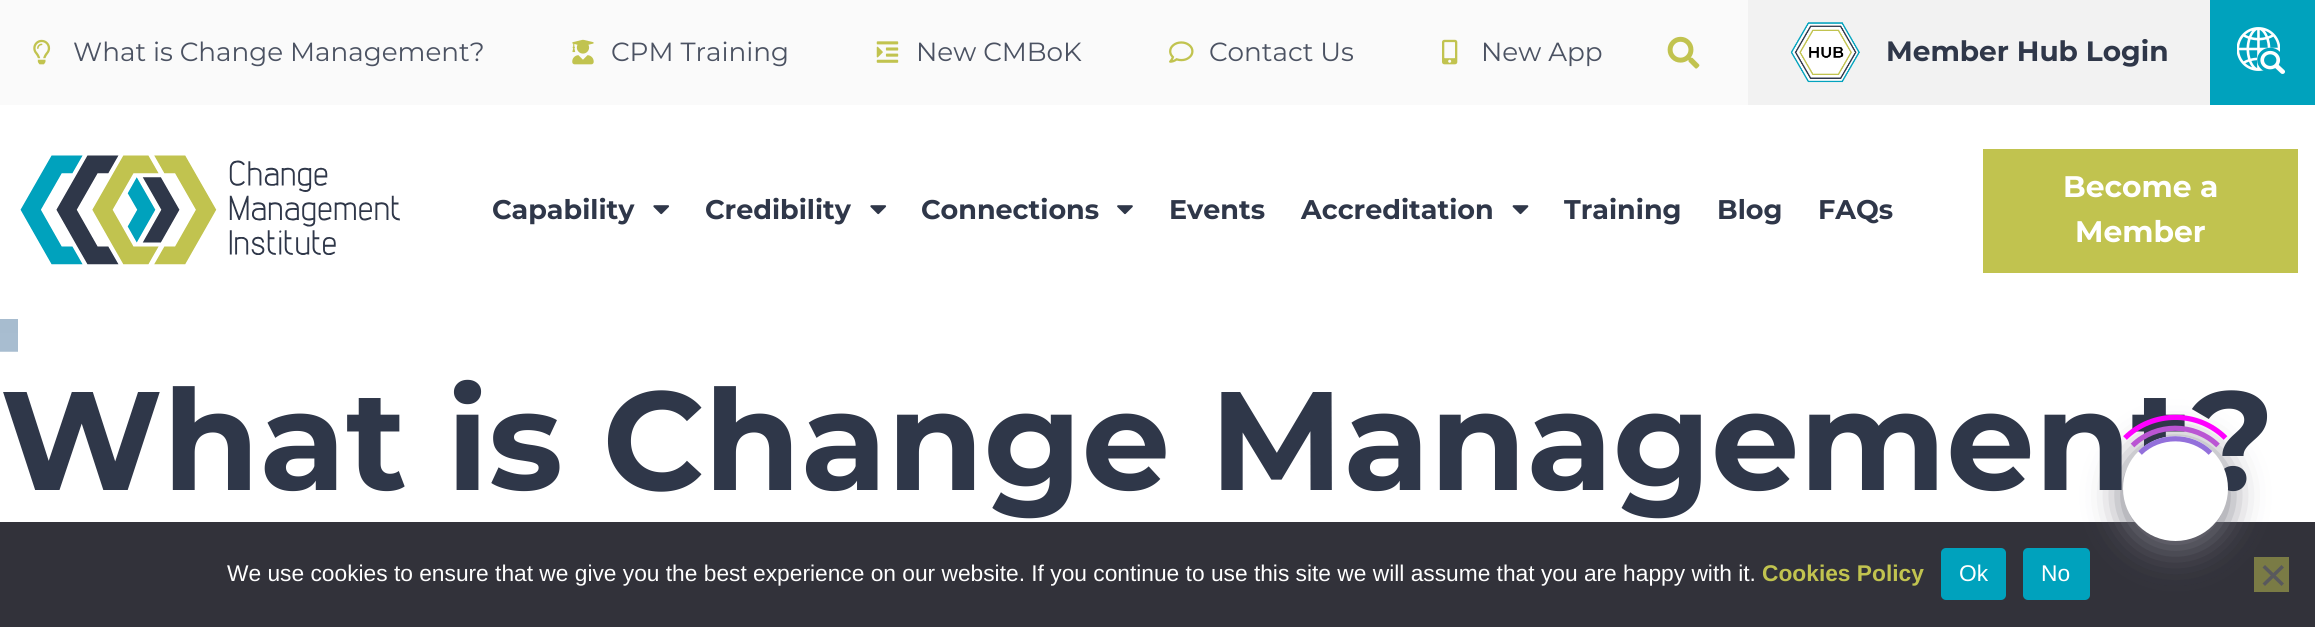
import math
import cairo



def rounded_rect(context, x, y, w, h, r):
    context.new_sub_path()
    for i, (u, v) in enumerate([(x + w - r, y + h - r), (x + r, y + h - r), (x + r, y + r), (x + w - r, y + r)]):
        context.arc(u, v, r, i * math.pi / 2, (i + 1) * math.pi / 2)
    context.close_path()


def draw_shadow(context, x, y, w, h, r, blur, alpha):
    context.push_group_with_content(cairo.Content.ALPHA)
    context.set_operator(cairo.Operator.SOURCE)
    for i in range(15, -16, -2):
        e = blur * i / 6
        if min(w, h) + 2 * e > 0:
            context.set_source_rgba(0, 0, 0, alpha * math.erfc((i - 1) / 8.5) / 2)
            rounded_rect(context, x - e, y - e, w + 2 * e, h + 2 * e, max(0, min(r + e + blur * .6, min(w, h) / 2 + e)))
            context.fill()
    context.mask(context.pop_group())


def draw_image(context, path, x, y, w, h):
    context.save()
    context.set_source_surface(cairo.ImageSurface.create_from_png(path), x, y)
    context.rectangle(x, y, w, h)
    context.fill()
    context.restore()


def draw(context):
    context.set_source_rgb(1, 1, 1)
    context.paint()
    context.set_source_rgb(250 / 255, 250 / 255, 250 / 255)
    context.rectangle(0, 0, 1748, 105)
    context.fill()
    draw_image(context, "images/1.png", 33, 39, 18, 26)
    draw_image(context, "images/2.png", 572, 39, 22, 26)
    draw_image(context, "images/3.png", 876, 41, 23, 22)
    draw_image(context, "images/4.png", 1169, 41, 25, 22)
    draw_image(context, "images/5.png", 1442, 39, 16, 26)
    draw_image(context, "images/6.png", 1667, 36, 33, 33)
    context.set_source_rgb(242 / 255, 242 / 255, 242 / 255)
    context.rectangle(1748, 0, 462, 105)
    context.fill()
    draw_image(context, "images/7.png", 1790, 22, 70, 61)
    context.set_source_rgb(0, 162 / 255, 189 / 255)
    context.rectangle(2210, 0, 105, 105)
    context.fill()
    draw_image(context, "images/8.png", 2237, 27, 48, 47)
    draw_image(context, "images/9.png", 20, 155, 380, 110)
    draw_image(context, "images/10.png", 653, 205, 17, 10)
    draw_image(context, "images/10.png", 870, 205, 17, 10)
    draw_image(context, "images/11.png", 1117, 205, 16, 10)
    draw_image(context, "images/12.png", 1512, 205, 17, 10)
    context.set_source_rgb(193 / 255, 195 / 255, 79 / 255)
    context.rectangle(1983, 149, 315, 124)
    context.fill()
    draw_image(context, "images/13.png", 0, 319, 18, 33)
    context.set_source_rgb(50 / 255, 50 / 255, 58 / 255)
    context.rectangle(0, 522, 2315, 105)
    context.fill()
    context.set_source_rgb(0, 162 / 255, 189 / 255)
    rounded_rect(context, 1941, 548, 65, 52, 5)
    context.fill()
    rounded_rect(context, 2023, 548, 67, 52, 5)
    context.fill()
    context.set_source_rgb(122 / 255, 123 / 255, 69 / 255)
    context.rectangle(2254, 557, 35, 35)
    context.fill()
    context.set_source_rgb(89 / 255, 89 / 255, 93 / 255)
    context.new_path()
    context.move_to(2281.5, 565)
    context.line_to(2284, 567.5)
    context.line_to(2265, 586)
    context.line_to(2262.5, 583.5)
    context.close_path()
    context.fill()
    context.new_path()
    context.move_to(2262.5, 567.5)
    context.line_to(2265, 565)
    context.line_to(2284, 583.5)
    context.line_to(2281.5, 586)
    context.close_path()
    context.fill()
    context.set_source_rgb(118 / 255, 117 / 255, 128 / 255)
    draw_shadow(context, 2123, 443, 105, 105, 52.5, 17.5, 1)
    context.select_font_face("Montserrat")
    context.set_font_size(26.25)
    context.set_source_rgb(75 / 255, 82 / 255, 98 / 255)
    context.move_to(73, 61)
    context.show_text("What is Change Management?")
    context.move_to(611, 61)
    context.show_text("CPM Training")
    context.move_to(916, 61)
    context.show_text("New CMBoK")
    context.move_to(1209, 61)
    context.show_text("Contact Us")
    context.move_to(1481, 61)
    context.show_text("New App")
    context.select_font_face("Montserrat", cairo.FontSlant.NORMAL, cairo.FontWeight.BOLD)
    context.set_font_size(28)
    context.set_source_rgb(47 / 255, 55 / 255, 73 / 255)
    context.move_to(1886, 61)
    context.show_text("Member Hub Login")
    context.set_font_size(27)
    context.move_to(492, 219)
    context.show_text("Capability")
    context.move_to(705, 219)
    context.show_text("Credibility")
    context.move_to(921, 219)
    context.show_text("Connections")
    context.move_to(1169, 219)
    context.show_text("Events")
    context.move_to(1301, 219)
    context.show_text("Accreditation")
    context.move_to(1564, 219)
    context.show_text("Training")
    context.move_to(1717, 219)
    context.show_text("Blog")
    context.move_to(1818, 219)
    context.show_text("FAQs")
    context.set_font_size(29.75)
    context.set_source_rgb(1, 1, 1)
    context.move_to(2063, 197)
    context.show_text("Become a")
    context.move_to(2075, 242)
    context.show_text("Member")
    context.set_font_size(140)
    context.set_source_rgb(47 / 255, 55 / 255, 73 / 255)
    context.move_to(0, 490)
    context.show_text("What is Change Management?")
    context.select_font_face("Liberation Sans")
    context.set_font_size(22.75)
    context.set_source_rgb(1, 1, 1)
    context.move_to(227, 581)
    context.show_text("We use cookies to ensure that we give you the best experience on our website. If you continue to use this site we will assume that you are happy with it.")
    context.select_font_face("Liberation Sans", cairo.FontSlant.NORMAL, cairo.FontWeight.BOLD)
    context.set_source_rgb(193 / 255, 195 / 255, 79 / 255)
    context.move_to(1762, 581)
    context.show_text("Cookies Policy")
    context.select_font_face("Liberation Sans")
    context.set_source_rgb(1, 1, 1)
    context.move_to(1959, 581)
    context.show_text("Ok")
    context.move_to(2041, 581)
    context.show_text("No")
    context.new_path()
    context.arc(2175.5, 488.5, 52.5, 0, 2 * math.pi)
    context.fill()
    context.new_path()
    context.move_to(2140, 453)
    context.curve_to(2159, 434, 2191.5, 434, 2210.5, 453)
    context.set_source_rgb(147 / 255, 112 / 255, 219 / 255)
    context.set_line_width(5.2)
    context.stroke()
    context.new_path()
    context.move_to(2132.5, 445.5)
    context.curve_to(2156, 422.5, 2194.5, 422.5, 2218, 445.5)
    context.set_source_rgb(186 / 255, 85 / 255, 211 / 255)
    context.stroke()
    context.new_path()
    context.move_to(2125, 438)
    context.curve_to(2152.5, 410.5, 2198, 410.5, 2225.5, 438)
    context.set_source_rgb(1, 0, 1)
    context.stroke()


surface = cairo.ImageSurface(cairo.Format.RGB24, 2315, 627)
context = cairo.Context(surface)
options = cairo.FontOptions()
options.set_hint_metrics(cairo.HintMetrics.OFF)
options.set_hint_style(cairo.HintStyle.NONE)
context.set_font_options(options)
context.set_miter_limit(4)
draw(context)
surface.write_to_png("out.png")
